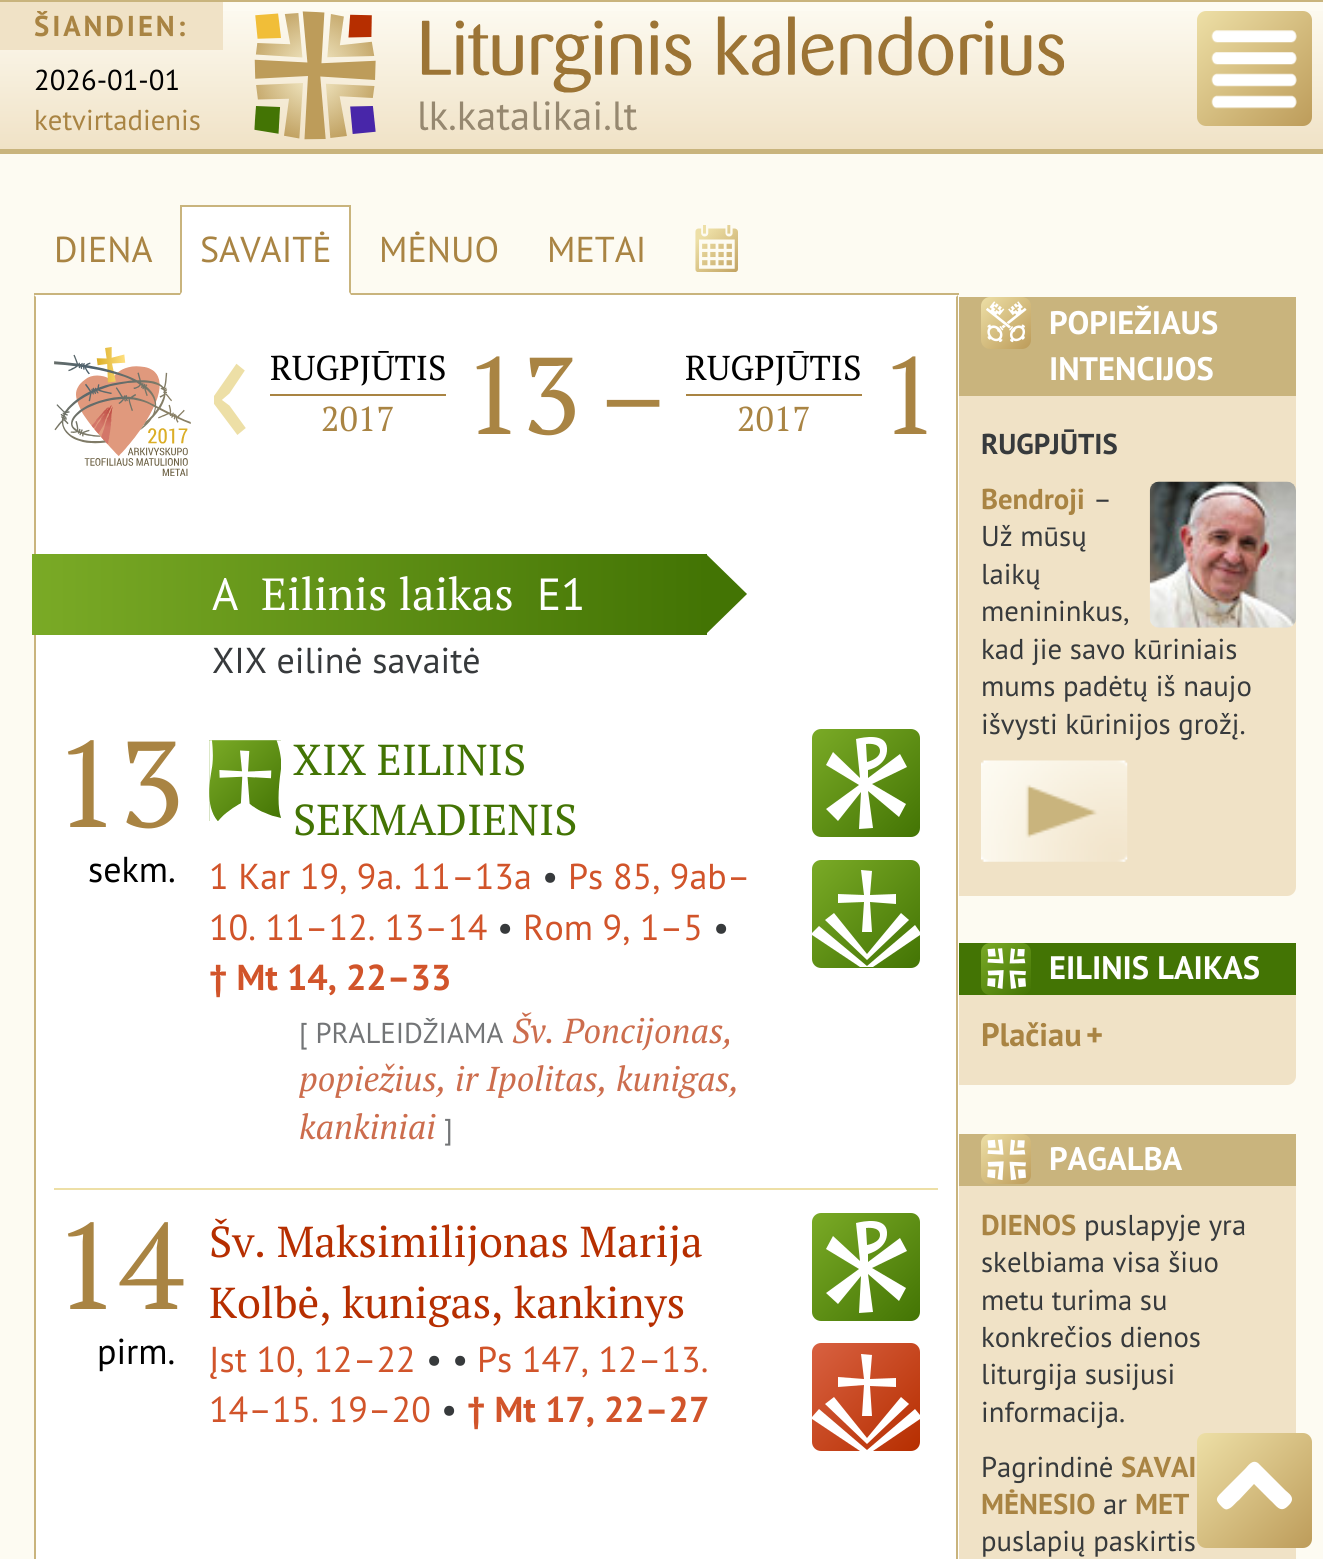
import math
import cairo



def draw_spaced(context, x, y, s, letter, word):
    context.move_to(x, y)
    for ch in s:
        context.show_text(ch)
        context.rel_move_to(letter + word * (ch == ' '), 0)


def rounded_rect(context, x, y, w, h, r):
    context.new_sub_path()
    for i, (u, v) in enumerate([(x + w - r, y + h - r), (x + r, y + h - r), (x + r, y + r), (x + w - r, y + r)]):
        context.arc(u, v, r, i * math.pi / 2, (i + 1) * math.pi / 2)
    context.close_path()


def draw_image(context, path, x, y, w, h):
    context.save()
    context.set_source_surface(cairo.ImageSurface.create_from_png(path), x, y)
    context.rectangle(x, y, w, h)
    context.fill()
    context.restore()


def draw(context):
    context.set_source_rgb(253 / 255, 251 / 255, 242 / 255)
    context.paint()
    gradient = cairo.LinearGradient(662, 2.2, 662, 149)
    gradient.add_color_stop_rgba(0, 253 / 255, 251 / 255, 242 / 255, 1)
    gradient.add_color_stop_rgba(1, 240 / 255, 226 / 255, 198 / 255, 1)
    context.set_source(gradient)
    context.rectangle(0, 11, 1323, 138)
    context.fill()
    context.set_source_rgb(201 / 255, 180 / 255, 125 / 255)
    context.rectangle(0, 0, 1323, 2)
    context.fill()
    context.rectangle(0, 149, 1323, 5)
    context.fill()
    context.set_source_rgb(240 / 255, 226 / 255, 198 / 255)
    context.rectangle(0, 2, 223, 48)
    context.fill()
    draw_image(context, "images/1.png", 254, 11, 810, 129)
    gradient = cairo.LinearGradient(1197, 11, 1312, 126)
    gradient.add_color_stop_rgba(0, 237 / 255, 223 / 255, 166 / 255, 1)
    gradient.add_color_stop_rgba(1, 189 / 255, 156 / 255, 90 / 255, 1)
    context.set_source(gradient)
    rounded_rect(context, 1197, 11, 115, 115, 9)
    context.fill()
    draw_image(context, "images/2.png", 1211, 30, 86, 79)
    context.set_source_rgb(201 / 255, 180 / 255, 125 / 255)
    context.rectangle(34, 293, 925, 2)
    context.fill()
    context.set_source_rgb(1, 1, 1)
    context.rectangle(180, 207, 171, 88)
    context.fill()
    context.set_source_rgb(201 / 255, 180 / 255, 125 / 255)
    context.rectangle(180, 205, 171, 2)
    context.fill()
    context.new_path()
    context.move_to(351, 205)
    context.line_to(351, 295)
    context.line_to(349, 292)
    context.line_to(349, 207)
    context.close_path()
    context.fill()
    context.new_path()
    context.move_to(180, 295)
    context.line_to(180, 205)
    context.line_to(182, 207)
    context.line_to(182, 292)
    context.close_path()
    context.fill()
    draw_image(context, "images/3.png", 695, 225, 43, 47)
    context.set_source_rgb(1, 1, 1)
    context.rectangle(34, 295, 925, 1264)
    context.fill()
    context.set_source_rgb(201 / 255, 180 / 255, 125 / 255)
    context.new_path()
    context.move_to(958, 295)
    context.line_to(958, 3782)
    context.line_to(956, 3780)
    context.line_to(956, 297)
    context.close_path()
    context.fill()
    context.new_path()
    context.move_to(34, 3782)
    context.line_to(34, 295)
    context.line_to(36, 297)
    context.line_to(36, 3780)
    context.close_path()
    context.fill()
    draw_image(context, "images/4.png", 54, 347, 137, 129)
    context.set_source_rgb(169 / 255, 132 / 255, 67 / 255)
    context.rectangle(270, 394, 176, 2)
    context.fill()
    context.rectangle(686, 394, 176, 2)
    context.fill()
    gradient = cairo.LinearGradient(32, 594, 707, 594)
    gradient.add_color_stop_rgba(0, 122 / 255, 170 / 255, 38 / 255, 1)
    gradient.add_color_stop_rgba(1, 67 / 255, 116 / 255, 4 / 255, 1)
    context.set_source(gradient)
    context.rectangle(32, 554, 675, 81)
    context.fill()
    context.set_source_rgb(67 / 255, 116 / 255, 4 / 255)
    context.new_path()
    context.move_to(706, 634)
    context.line_to(706, 554)
    context.line_to(747, 594)
    context.close_path()
    context.fill()
    gradient = cairo.LinearGradient(207, 743, 284, 819)
    gradient.add_color_stop_rgba(0, 122 / 255, 170 / 255, 38 / 255, 1)
    gradient.add_color_stop_rgba(1, 67 / 255, 116 / 255, 4 / 255, 1)
    context.set_source(gradient)
    context.rectangle(209, 740, 72, 81)
    context.fill()
    draw_image(context, "images/5.png", 209, 740, 72, 81)
    gradient = cairo.LinearGradient(812, 729, 920, 837)
    gradient.add_color_stop_rgba(0, 122 / 255, 170 / 255, 38 / 255, 1)
    gradient.add_color_stop_rgba(1, 67 / 255, 116 / 255, 4 / 255, 1)
    context.set_source(gradient)
    rounded_rect(context, 812, 729, 108, 108, 9)
    context.fill()
    context.set_source_rgb(1, 1, 1)
    context.new_path()
    context.move_to(880, 751)
    context.curve_to(880, 742, 866, 744, 866, 744)
    context.line_to(867, 762)
    context.curve_to(867, 762, 880, 759, 880, 751)
    context.close_path()
    context.move_to(906, 804)
    context.line_to(899, 817)
    context.line_to(868, 791)
    context.line_to(873, 828)
    context.line_to(859, 829)
    context.line_to(861, 792)
    context.line_to(838, 821)
    context.line_to(826, 809)
    context.line_to(859, 785)
    context.line_to(826, 765)
    context.line_to(833, 752)
    context.line_to(860, 778)
    context.line_to(856, 739)
    context.curve_to(864, 737, 886, 733, 887, 748)
    context.curve_to(888, 766, 868, 770, 868, 770)
    context.line_to(868, 778)
    context.line_to(900, 754)
    context.line_to(907, 767)
    context.line_to(872, 784)
    context.close_path()
    context.fill()
    gradient = cairo.LinearGradient(812, 860, 920, 968)
    gradient.add_color_stop_rgba(0, 122 / 255, 170 / 255, 38 / 255, 1)
    gradient.add_color_stop_rgba(1, 67 / 255, 116 / 255, 4 / 255, 1)
    context.set_source(gradient)
    rounded_rect(context, 812, 860, 108, 108, 9)
    context.fill()
    context.set_source_rgb(1, 1, 1)
    context.new_path()
    context.move_to(860, 967)
    context.line_to(812, 935)
    context.move_to(873, 967)
    context.line_to(860, 967)
    context.line_to(812, 935)
    context.line_to(812, 933)
    context.line_to(819, 926)
    context.line_to(867, 966)
    context.line_to(915, 925)
    context.line_to(920, 932)
    context.move_to(861, 870)
    context.line_to(872, 871)
    context.line_to(870, 895)
    context.line_to(896, 894)
    context.line_to(896, 904)
    context.line_to(870, 902)
    context.line_to(872, 932)
    context.line_to(862, 932)
    context.line_to(864, 902)
    context.line_to(838, 903)
    context.line_to(838, 894)
    context.line_to(864, 895)
    context.close_path()
    context.move_to(867, 960)
    context.line_to(825, 920)
    context.line_to(834, 913)
    context.line_to(867, 954)
    context.line_to(901, 913)
    context.line_to(909, 920)
    context.close_path()
    context.move_to(920, 932)
    context.line_to(920, 935)
    context.line_to(873, 967)
    context.fill()
    context.set_source_rgb(237 / 255, 223 / 255, 166 / 255)
    context.rectangle(54, 1188, 884, 2)
    context.fill()
    gradient = cairo.LinearGradient(812, 1213, 920, 1321)
    gradient.add_color_stop_rgba(0, 122 / 255, 170 / 255, 38 / 255, 1)
    gradient.add_color_stop_rgba(1, 67 / 255, 116 / 255, 4 / 255, 1)
    context.set_source(gradient)
    rounded_rect(context, 812, 1213, 108, 108, 9)
    context.fill()
    context.set_source_rgb(1, 1, 1)
    context.new_path()
    context.move_to(880, 1235)
    context.curve_to(880, 1226, 866, 1228, 866, 1228)
    context.line_to(867, 1245)
    context.curve_to(867, 1245, 880, 1243, 880, 1235)
    context.close_path()
    context.move_to(906, 1288)
    context.line_to(899, 1301)
    context.line_to(868, 1274)
    context.line_to(873, 1312)
    context.line_to(859, 1313)
    context.line_to(861, 1276)
    context.line_to(838, 1304)
    context.line_to(826, 1293)
    context.line_to(859, 1269)
    context.line_to(826, 1249)
    context.line_to(833, 1236)
    context.line_to(860, 1261)
    context.line_to(856, 1223)
    context.curve_to(864, 1221, 886, 1217, 887, 1232)
    context.curve_to(888, 1249, 868, 1254, 868, 1254)
    context.line_to(868, 1262)
    context.line_to(900, 1238)
    context.line_to(907, 1251)
    context.line_to(872, 1268)
    context.close_path()
    context.fill()
    gradient = cairo.LinearGradient(812, 1343, 920, 1451)
    gradient.add_color_stop_rgba(0, 216 / 255, 97 / 255, 65 / 255, 1)
    gradient.add_color_stop_rgba(1, 182 / 255, 46 / 255, 0, 1)
    context.set_source(gradient)
    rounded_rect(context, 812, 1343, 108, 108, 9)
    context.fill()
    context.set_source_rgb(1, 1, 1)
    context.new_path()
    context.move_to(860, 1451)
    context.line_to(812, 1419)
    context.move_to(873, 1451)
    context.line_to(860, 1451)
    context.line_to(812, 1419)
    context.line_to(812, 1417)
    context.line_to(819, 1409)
    context.line_to(867, 1450)
    context.line_to(915, 1409)
    context.line_to(920, 1415)
    context.move_to(861, 1354)
    context.line_to(872, 1355)
    context.line_to(870, 1379)
    context.line_to(896, 1378)
    context.line_to(896, 1387)
    context.line_to(870, 1386)
    context.line_to(872, 1416)
    context.line_to(862, 1416)
    context.line_to(864, 1385)
    context.line_to(838, 1387)
    context.line_to(838, 1377)
    context.line_to(864, 1379)
    context.close_path()
    context.move_to(867, 1444)
    context.line_to(825, 1404)
    context.line_to(834, 1397)
    context.line_to(867, 1438)
    context.line_to(901, 1397)
    context.line_to(909, 1404)
    context.close_path()
    context.move_to(920, 1415)
    context.line_to(920, 1419)
    context.line_to(873, 1451)
    context.fill()
    context.set_source_rgb(240 / 255, 226 / 255, 198 / 255)
    context.new_path()
    context.move_to(959, 297)
    context.line_to(1287, 297)
    context.curve_to(1292, 297, 1296, 301, 1296, 306)
    context.line_to(1296, 887)
    context.curve_to(1296, 892, 1292, 896, 1287, 896)
    context.line_to(959, 896)
    context.close_path()
    context.fill()
    context.set_source_rgb(201 / 255, 180 / 255, 125 / 255)
    context.rectangle(959, 297, 337, 99)
    context.fill()
    gradient = cairo.LinearGradient(980, 298, 1031, 348)
    gradient.add_color_stop_rgba(0, 237 / 255, 223 / 255, 166 / 255, 1)
    gradient.add_color_stop_rgba(1, 189 / 255, 156 / 255, 90 / 255, 1)
    context.set_source(gradient)
    rounded_rect(context, 981, 297, 50, 52, 9)
    context.fill()
    draw_image(context, "images/6.png", 986, 301, 41, 42)
    draw_image(context, "images/7.png", 1149, 481, 147, 147)
    draw_image(context, "images/8.png", 981, 760, 147, 102)
    context.set_source_rgb(240 / 255, 226 / 255, 198 / 255)
    context.new_path()
    context.move_to(959, 943)
    context.line_to(1287, 943)
    context.curve_to(1292, 943, 1296, 947, 1296, 952)
    context.line_to(1296, 1076)
    context.curve_to(1296, 1081, 1292, 1085, 1287, 1085)
    context.line_to(959, 1085)
    context.close_path()
    context.fill()
    context.set_source_rgb(67 / 255, 116 / 255, 4 / 255)
    context.rectangle(959, 943, 337, 52)
    context.fill()
    gradient = cairo.LinearGradient(980, 943, 1031, 994)
    gradient.add_color_stop_rgba(0, 122 / 255, 170 / 255, 38 / 255, 1)
    gradient.add_color_stop_rgba(1, 67 / 255, 116 / 255, 4 / 255, 1)
    context.set_source(gradient)
    rounded_rect(context, 981, 943, 50, 52, 9)
    context.fill()
    draw_image(context, "images/9.png", 987, 948, 39, 41)
    context.set_source_rgb(240 / 255, 226 / 255, 198 / 255)
    context.rectangle(959, 1186, 337, 373)
    context.fill()
    context.set_source_rgb(201 / 255, 180 / 255, 125 / 255)
    context.rectangle(959, 1134, 337, 52)
    context.fill()
    gradient = cairo.LinearGradient(981, 1134, 1031, 1184)
    gradient.add_color_stop_rgba(0, 237 / 255, 223 / 255, 166 / 255, 1)
    gradient.add_color_stop_rgba(1, 189 / 255, 156 / 255, 90 / 255, 1)
    context.set_source(gradient)
    rounded_rect(context, 981, 1134, 50, 50, 9)
    context.fill()
    draw_image(context, "images/10.png", 987, 1139, 39, 42)
    gradient = cairo.LinearGradient(1197, 1433, 1312, 1548)
    gradient.add_color_stop_rgba(0, 237 / 255, 223 / 255, 166 / 255, 1)
    gradient.add_color_stop_rgba(1, 189 / 255, 156 / 255, 90 / 255, 1)
    context.set_source(gradient)
    rounded_rect(context, 1197, 1433, 115, 115, 9)
    context.fill()
    context.set_source_rgb(1, 1, 1)
    context.new_path()
    context.move_to(1292, 1499)
    context.curve_to(1292, 1502, 1290, 1504, 1288, 1506)
    context.curve_to(1280, 1514, 1276, 1505, 1270, 1500)
    context.line_to(1254, 1484)
    context.line_to(1239, 1500)
    context.curve_to(1236, 1502, 1232, 1508, 1228, 1509)
    context.curve_to(1226, 1510, 1224, 1509, 1222, 1507)
    context.curve_to(1214, 1499, 1216, 1498, 1224, 1490)
    context.line_to(1245, 1469)
    context.curve_to(1248, 1466, 1252, 1459, 1258, 1463)
    context.line_to(1285, 1490)
    context.curve_to(1287, 1492, 1292, 1495, 1292, 1499)
    context.close_path()
    context.fill()
    context.select_font_face("PT Sans", cairo.FontSlant.NORMAL, cairo.FontWeight.BOLD)
    context.set_font_size(28.75)
    context.set_source_rgb(169 / 255, 132 / 255, 67 / 255)
    draw_spaced(context, 34, 36, "ŠIANDIEN:", 2.9, 0)
    context.select_font_face("PT Sans")
    context.set_source_rgb(0, 0, 0)
    context.move_to(34, 90)
    context.show_text("2026-01-01")
    context.set_source_rgb(169 / 255, 132 / 255, 67 / 255)
    context.move_to(34, 130)
    context.show_text("ketvirtadienis")
    context.set_font_size(36)
    context.move_to(54, 262)
    context.show_text("DIENA")
    context.move_to(200, 262)
    context.show_text("SAVAITĖ")
    context.move_to(379, 262)
    context.show_text("MĖNUO")
    context.move_to(547, 262)
    context.show_text("METAI")
    context.save()
    context.rectangle(214, 315, 724, 207)
    context.clip()
    context.set_font_size(158)
    context.set_source_rgb(237 / 255, 223 / 255, 166 / 255)
    context.move_to(205, 441)
    context.show_text("‹")
    context.restore()
    context.select_font_face("PT Serif")
    context.set_font_size(34.5)
    context.set_source_rgb(0, 0, 0)
    context.move_to(270, 380)
    context.show_text("RUGPJŪTIS")
    context.set_source_rgb(169 / 255, 132 / 255, 67 / 255)
    context.move_to(321, 431)
    context.show_text("2017")
    context.set_font_size(109)
    context.move_to(464, 434)
    context.show_text("13")
    context.move_to(599, 434)
    context.show_text("–")
    context.set_font_size(34.5)
    context.set_source_rgb(0, 0, 0)
    context.move_to(685, 380)
    context.show_text("RUGPJŪTIS")
    context.set_source_rgb(169 / 255, 132 / 255, 67 / 255)
    context.move_to(737, 431)
    context.show_text("2017")
    context.set_font_size(109)
    context.move_to(880, 434)
    context.show_text("1")
    context.select_font_face("PT Sans")
    context.set_font_size(45)
    context.set_source_rgb(1, 1, 1)
    context.move_to(212, 610)
    context.show_text("A")
    context.select_font_face("PT Serif")
    context.move_to(261, 610)
    context.show_text("Eilinis laikas")
    context.select_font_face("PT Sans")
    context.move_to(537, 610)
    context.show_text("E1")
    context.set_font_size(36)
    context.set_source_rgb(55 / 255, 58 / 255, 60 / 255)
    context.move_to(212, 673)
    context.show_text("XIX eilinė savaitė")
    context.select_font_face("PT Serif")
    context.set_font_size(122)
    context.set_source_rgb(169 / 255, 132 / 255, 67 / 255)
    context.move_to(54, 827)
    context.show_text("13")
    context.select_font_face("PT Sans")
    context.set_font_size(36)
    context.set_source_rgb(0, 0, 0)
    context.move_to(88, 882)
    context.show_text("sekm.")
    context.select_font_face("PT Serif")
    context.set_font_size(43.25)
    context.set_source_rgb(67 / 255, 116 / 255, 4 / 255)
    context.move_to(293, 775)
    context.show_text("XIX EILINIS")
    context.move_to(293, 835)
    context.show_text("SEKMADIENIS")
    context.select_font_face("PT Sans")
    context.set_font_size(36)
    context.set_source_rgb(209 / 255, 84 / 255, 42 / 255)
    context.move_to(209, 889)
    context.show_text("1 Kar 19, 9a. 11–13a")
    context.set_source_rgb(55 / 255, 58 / 255, 60 / 255)
    context.move_to(542, 889)
    context.show_text("•")
    context.set_source_rgb(209 / 255, 84 / 255, 42 / 255)
    context.move_to(568, 889)
    context.show_text("Ps 85, 9ab–")
    context.move_to(209, 940)
    context.show_text("10. 11–12. 13–14")
    context.set_source_rgb(55 / 255, 58 / 255, 60 / 255)
    context.move_to(497, 940)
    context.show_text("•")
    context.set_source_rgb(209 / 255, 84 / 255, 42 / 255)
    context.move_to(523, 940)
    context.show_text("Rom 9, 1–5")
    context.set_source_rgb(55 / 255, 58 / 255, 60 / 255)
    context.move_to(713, 940)
    context.show_text("•")
    context.select_font_face("PT Sans", cairo.FontSlant.NORMAL, cairo.FontWeight.BOLD)
    context.set_source_rgb(209 / 255, 84 / 255, 42 / 255)
    context.move_to(209, 990)
    context.show_text("† Mt 14, 22–33")
    context.select_font_face("PT Sans")
    context.set_font_size(28.75)
    context.set_source_rgb(115 / 255, 117 / 255, 119 / 255)
    context.move_to(299, 1043)
    context.show_text("[ PRALEIDŽIAMA")
    context.select_font_face("PT Serif", cairo.FontSlant.ITALIC)
    context.set_font_size(34.5)
    context.set_source_rgb(204 / 255, 109 / 255, 77 / 255)
    context.move_to(512, 1043)
    context.show_text("Šv. Poncijonas,")
    context.move_to(299, 1091)
    context.show_text("popiežius, ir Ipolitas, kunigas,")
    context.move_to(299, 1139)
    context.show_text("kankiniai")
    context.select_font_face("PT Sans")
    context.set_font_size(28.75)
    context.set_source_rgb(115 / 255, 117 / 255, 119 / 255)
    context.move_to(444, 1139)
    context.show_text("]")
    context.select_font_face("PT Serif")
    context.set_font_size(122)
    context.set_source_rgb(169 / 255, 132 / 255, 67 / 255)
    context.move_to(54, 1309)
    context.show_text("14")
    context.select_font_face("PT Sans")
    context.set_font_size(36)
    context.set_source_rgb(0, 0, 0)
    context.move_to(97, 1364)
    context.show_text("pirm.")
    context.select_font_face("PT Serif")
    context.set_font_size(43.25)
    context.set_source_rgb(182 / 255, 46 / 255, 0)
    context.move_to(209, 1257)
    context.show_text("Šv. Maksimilijonas Marija")
    context.move_to(209, 1318)
    context.show_text("Kolbė, kunigas, kankinys")
    context.select_font_face("PT Sans")
    context.set_font_size(36)
    context.set_source_rgb(209 / 255, 84 / 255, 42 / 255)
    context.move_to(209, 1372)
    context.show_text("Įst 10, 12–22")
    context.set_source_rgb(55 / 255, 58 / 255, 60 / 255)
    context.move_to(426, 1372)
    context.show_text("• •")
    context.set_source_rgb(209 / 255, 84 / 255, 42 / 255)
    context.move_to(477, 1372)
    context.show_text("Ps 147, 12–13.")
    context.move_to(209, 1422)
    context.show_text("14–15. 19–20")
    context.set_source_rgb(55 / 255, 58 / 255, 60 / 255)
    context.move_to(441, 1422)
    context.show_text("•")
    context.select_font_face("PT Sans", cairo.FontSlant.NORMAL, cairo.FontWeight.BOLD)
    context.set_source_rgb(209 / 255, 84 / 255, 42 / 255)
    context.move_to(467, 1422)
    context.show_text("† Mt 17, 22–27")
    context.set_font_size(32.5)
    context.set_source_rgb(1, 1, 1)
    context.move_to(1049, 334)
    context.show_text("POPIEŽIAUS")
    context.move_to(1049, 380)
    context.show_text("INTENCIJOS")
    context.set_font_size(28.75)
    context.set_source_rgb(55 / 255, 58 / 255, 60 / 255)
    context.move_to(981, 454)
    context.show_text("RUGPJŪTIS")
    context.set_source_rgb(169 / 255, 132 / 255, 67 / 255)
    context.move_to(981, 509)
    context.show_text("Bendroji")
    context.select_font_face("PT Sans")
    context.set_source_rgb(55 / 255, 58 / 255, 60 / 255)
    context.move_to(1093, 509)
    context.show_text("–")
    context.move_to(981, 546)
    context.show_text("Už mūsų")
    context.move_to(981, 584)
    context.show_text("laikų")
    context.move_to(981, 621)
    context.show_text("menininkus,")
    context.move_to(981, 659)
    context.show_text("kad jie savo kūriniais")
    context.move_to(981, 696)
    context.show_text("mums padėtų iš naujo")
    context.move_to(981, 734)
    context.show_text("išvysti kūrinijos grožį.")
    context.select_font_face("PT Sans", cairo.FontSlant.NORMAL, cairo.FontWeight.BOLD)
    context.set_font_size(32.5)
    context.set_source_rgb(1, 1, 1)
    context.move_to(1049, 979)
    context.show_text("EILINIS LAIKAS")
    context.set_source_rgb(169 / 255, 132 / 255, 67 / 255)
    context.move_to(981, 1046)
    context.show_text("Plačiau")
    context.move_to(1086, 1046)
    context.show_text("+")
    context.set_source_rgb(1, 1, 1)
    context.move_to(1049, 1170)
    context.show_text("PAGALBA")
    context.set_font_size(28.75)
    context.set_source_rgb(169 / 255, 132 / 255, 67 / 255)
    context.move_to(981, 1235)
    context.show_text("DIENOS")
    context.select_font_face("PT Sans")
    context.set_source_rgb(55 / 255, 58 / 255, 60 / 255)
    context.move_to(1084, 1235)
    context.show_text("puslapyje yra")
    context.move_to(981, 1272)
    context.show_text("skelbiama visa šiuo")
    context.move_to(981, 1310)
    context.show_text("metu turima su")
    context.move_to(981, 1347)
    context.show_text("konkrečios dienos")
    context.move_to(981, 1384)
    context.show_text("liturgija susijusi")
    context.move_to(981, 1422)
    context.show_text("informacija.")
    context.move_to(981, 1477)
    context.show_text("Pagrindinė")
    context.select_font_face("PT Sans", cairo.FontSlant.NORMAL, cairo.FontWeight.BOLD)
    context.set_source_rgb(169 / 255, 132 / 255, 67 / 255)
    context.move_to(1121, 1477)
    context.show_text("SAVAI")
    context.move_to(981, 1514)
    context.show_text("MĖNESIO")
    context.select_font_face("PT Sans")
    context.set_source_rgb(55 / 255, 58 / 255, 60 / 255)
    context.move_to(1103, 1514)
    context.show_text("ar")
    context.select_font_face("PT Sans", cairo.FontSlant.NORMAL, cairo.FontWeight.BOLD)
    context.set_source_rgb(169 / 255, 132 / 255, 67 / 255)
    context.move_to(1135, 1514)
    context.show_text("MET")
    context.select_font_face("PT Sans")
    context.set_source_rgb(55 / 255, 58 / 255, 60 / 255)
    context.move_to(981, 1551)
    context.show_text("puslapių paskirtis")


surface = cairo.ImageSurface(cairo.Format.RGB24, 1323, 1559)
context = cairo.Context(surface)
options = cairo.FontOptions()
options.set_hint_metrics(cairo.HintMetrics.OFF)
options.set_hint_style(cairo.HintStyle.NONE)
context.set_font_options(options)
context.set_miter_limit(4)
draw(context)
surface.write_to_png("out.png")
